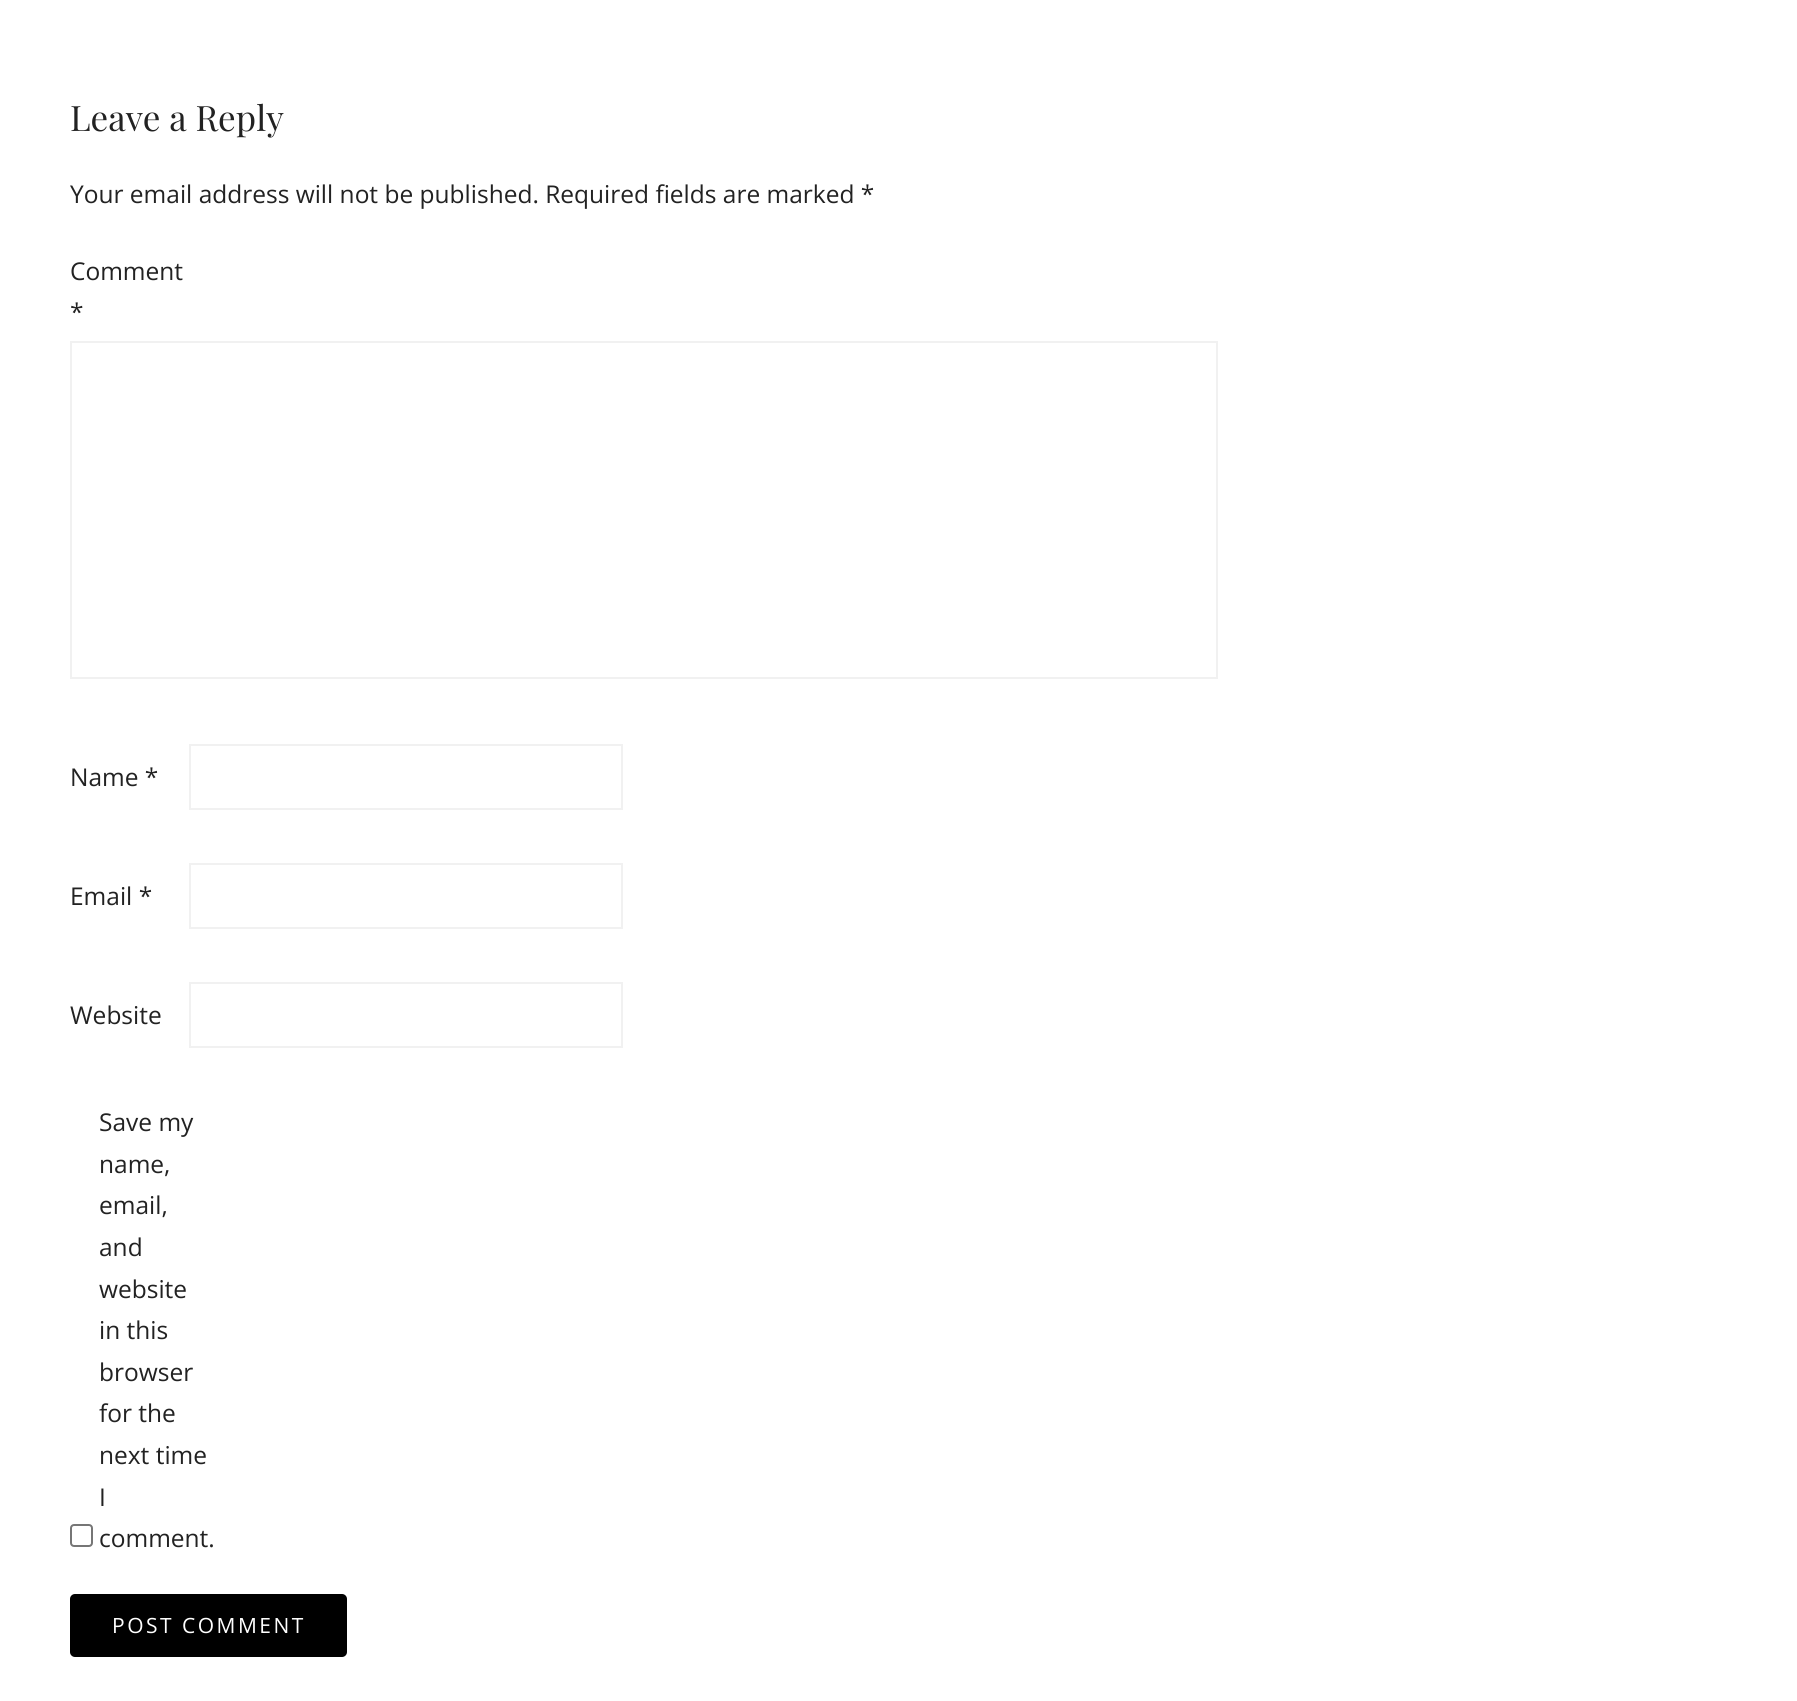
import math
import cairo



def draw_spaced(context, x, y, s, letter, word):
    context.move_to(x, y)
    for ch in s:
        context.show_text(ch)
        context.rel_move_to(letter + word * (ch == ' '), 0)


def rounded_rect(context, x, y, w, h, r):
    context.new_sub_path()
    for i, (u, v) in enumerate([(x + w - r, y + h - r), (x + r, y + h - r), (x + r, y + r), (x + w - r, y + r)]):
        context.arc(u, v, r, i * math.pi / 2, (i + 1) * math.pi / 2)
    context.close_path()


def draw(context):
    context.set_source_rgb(1, 1, 1)
    context.paint()
    context.rectangle(71, 342, 1146, 336)
    context.set_source_rgb(241 / 255, 241 / 255, 241 / 255)
    context.stroke()
    context.rectangle(190, 745, 432, 64)
    context.stroke()
    context.rectangle(190, 864, 432, 64)
    context.stroke()
    context.rectangle(190, 983, 432, 64)
    context.stroke()
    rounded_rect(context, 71, 1525, 21, 21, 3)
    context.set_source_rgb(118 / 255, 118 / 255, 118 / 255)
    context.stroke()
    context.set_source_rgb(0, 0, 0)
    rounded_rect(context, 70, 1594, 277, 63, 5)
    context.fill()
    context.select_font_face("Playfair Display")
    context.set_font_size(35)
    context.set_source_rgb(34 / 255, 34 / 255, 34 / 255)
    context.move_to(70, 131)
    context.show_text("Leave a Reply")
    context.select_font_face("Open Sans")
    context.set_font_size(24.5)
    context.move_to(70, 203)
    context.show_text("Your email address will not be published. Required fields are marked *")
    context.move_to(70, 280)
    context.show_text("Comment")
    context.move_to(70, 321)
    context.show_text("*")
    context.move_to(70, 786)
    context.show_text("Name *")
    context.move_to(70, 905)
    context.show_text("Email *")
    context.move_to(70, 1024)
    context.show_text("Website")
    context.move_to(99, 1131)
    context.show_text("Save my")
    context.move_to(99, 1173)
    context.show_text("name,")
    context.move_to(99, 1214)
    context.show_text("email,")
    context.move_to(99, 1256)
    context.show_text("and")
    context.move_to(99, 1298)
    context.show_text("website")
    context.move_to(99, 1339)
    context.show_text("in this")
    context.move_to(99, 1381)
    context.show_text("browser")
    context.move_to(99, 1422)
    context.show_text("for the")
    context.move_to(99, 1464)
    context.show_text("next time")
    context.move_to(99, 1506)
    context.show_text("I")
    context.move_to(99, 1547)
    context.show_text("comment.")
    context.set_font_size(21)
    context.set_source_rgb(1, 1, 1)
    draw_spaced(context, 112, 1633, "POST COMMENT", 2.5, 0)


surface = cairo.ImageSurface(cairo.Format.RGB24, 1797, 1701)
context = cairo.Context(surface)
options = cairo.FontOptions()
options.set_hint_metrics(cairo.HintMetrics.OFF)
options.set_hint_style(cairo.HintStyle.NONE)
context.set_font_options(options)
context.set_miter_limit(4)
draw(context)
surface.write_to_png("out.png")
